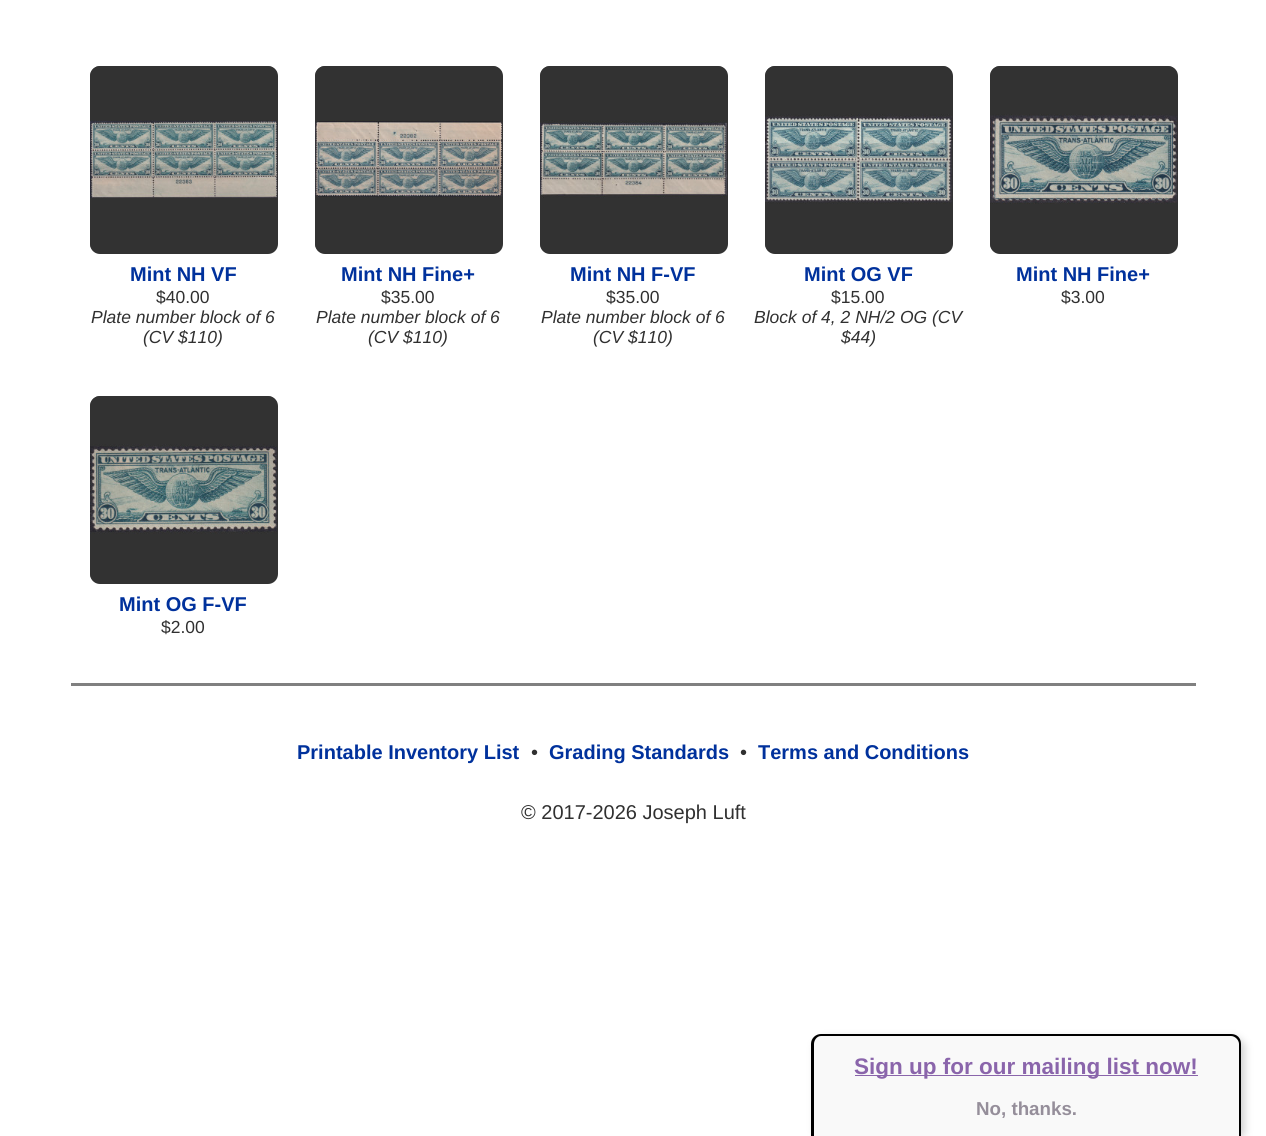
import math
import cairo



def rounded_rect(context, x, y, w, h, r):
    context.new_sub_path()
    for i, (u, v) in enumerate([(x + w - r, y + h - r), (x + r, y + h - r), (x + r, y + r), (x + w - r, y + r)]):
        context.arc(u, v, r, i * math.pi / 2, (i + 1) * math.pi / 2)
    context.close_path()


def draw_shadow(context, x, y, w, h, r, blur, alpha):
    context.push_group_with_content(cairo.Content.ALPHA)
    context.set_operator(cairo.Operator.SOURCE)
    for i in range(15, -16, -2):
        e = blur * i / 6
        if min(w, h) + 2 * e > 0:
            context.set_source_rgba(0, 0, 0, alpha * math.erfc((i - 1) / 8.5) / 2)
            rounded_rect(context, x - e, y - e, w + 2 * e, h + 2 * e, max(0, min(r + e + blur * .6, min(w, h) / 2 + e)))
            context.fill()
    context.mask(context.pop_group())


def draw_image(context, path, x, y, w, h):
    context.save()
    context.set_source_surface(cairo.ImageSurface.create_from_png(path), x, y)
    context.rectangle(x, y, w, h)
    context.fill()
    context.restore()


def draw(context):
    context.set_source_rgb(1, 1, 1)
    context.paint()
    context.set_source_rgb(51 / 255, 51 / 255, 51 / 255)
    rounded_rect(context, 90, 66, 188, 188, 10)
    context.fill()
    draw_image(context, "images/1.png", 90, 66, 188, 188)
    rounded_rect(context, 315, 66, 188, 188, 10)
    context.fill()
    draw_image(context, "images/2.png", 315, 66, 188, 188)
    rounded_rect(context, 540, 66, 188, 188, 10)
    context.fill()
    draw_image(context, "images/3.png", 540, 66, 188, 188)
    rounded_rect(context, 765, 66, 188, 188, 10)
    context.fill()
    draw_image(context, "images/4.png", 765, 66, 188, 188)
    rounded_rect(context, 990, 66, 188, 188, 10)
    context.fill()
    draw_image(context, "images/5.png", 990, 66, 188, 188)
    rounded_rect(context, 90, 396, 188, 188, 10)
    context.fill()
    draw_image(context, "images/6.png", 90, 396, 187, 188)
    context.set_source_rgb(128 / 255, 128 / 255, 128 / 255)
    context.rectangle(71, 683, 1125, 3)
    context.fill()
    context.set_source_rgb(211 / 255, 211 / 255, 211 / 255)
    draw_shadow(context, 815, 1038, 430, 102, 10, 4, 1)
    context.set_source_rgb(249 / 255, 249 / 255, 249 / 255)
    context.new_path()
    context.move_to(821, 1034)
    context.line_to(1231, 1034)
    context.curve_to(1236.5, 1034, 1241, 1038.5, 1241, 1044)
    context.line_to(1241, 1136)
    context.line_to(811, 1136)
    context.line_to(811, 1044)
    context.curve_to(811, 1038.5, 815.5, 1034, 821, 1034)
    context.close_path()
    context.fill()
    context.set_source_rgb(0, 0, 0)
    context.set_fill_rule(cairo.FillRule.EVEN_ODD)
    context.new_path()
    context.move_to(821, 1034)
    context.line_to(1231, 1034)
    context.curve_to(1237, 1034, 1241, 1038, 1241, 1044)
    context.line_to(1241, 1136)
    context.line_to(811, 1136)
    context.line_to(811, 1044)
    context.curve_to(811, 1038, 816, 1034, 821, 1034)
    context.close_path()
    context.move_to(821, 1036)
    context.line_to(1231, 1036)
    context.curve_to(1235, 1036, 1239, 1040, 1239, 1044)
    context.line_to(1239, 1136)
    context.line_to(814, 1136)
    context.line_to(814, 1044)
    context.curve_to(814, 1040, 817, 1036, 821, 1036)
    context.close_path()
    context.fill()
    context.set_source_rgb(138 / 255, 101 / 255, 171 / 255)
    context.rectangle(855, 1075, 343, 1)
    context.fill()
    context.select_font_face("Liberation Sans", cairo.FontSlant.NORMAL, cairo.FontWeight.BOLD)
    context.set_font_size(20)
    context.set_source_rgb(0, 49 / 255, 156 / 255)
    context.move_to(130, 281)
    context.show_text("Mint NH VF")
    context.select_font_face("Liberation Sans")
    context.set_font_size(17.5)
    context.set_source_rgb(48 / 255, 48 / 255, 48 / 255)
    context.move_to(156, 303)
    context.show_text("$40.00")
    context.select_font_face("Liberation Sans", cairo.FontSlant.ITALIC)
    context.move_to(91, 323)
    context.show_text("Plate number block of 6")
    context.move_to(143, 343)
    context.show_text("(CV $110)")
    context.select_font_face("Liberation Sans", cairo.FontSlant.NORMAL, cairo.FontWeight.BOLD)
    context.set_font_size(20)
    context.set_source_rgb(0, 49 / 255, 156 / 255)
    context.move_to(341, 281)
    context.show_text("Mint NH Fine+")
    context.select_font_face("Liberation Sans")
    context.set_font_size(17.5)
    context.set_source_rgb(48 / 255, 48 / 255, 48 / 255)
    context.move_to(381, 303)
    context.show_text("$35.00")
    context.select_font_face("Liberation Sans", cairo.FontSlant.ITALIC)
    context.move_to(316, 323)
    context.show_text("Plate number block of 6")
    context.move_to(368, 343)
    context.show_text("(CV $110)")
    context.select_font_face("Liberation Sans", cairo.FontSlant.NORMAL, cairo.FontWeight.BOLD)
    context.set_font_size(20)
    context.set_source_rgb(0, 49 / 255, 156 / 255)
    context.move_to(570, 281)
    context.show_text("Mint NH F-VF")
    context.select_font_face("Liberation Sans")
    context.set_font_size(17.5)
    context.set_source_rgb(48 / 255, 48 / 255, 48 / 255)
    context.move_to(606, 303)
    context.show_text("$35.00")
    context.select_font_face("Liberation Sans", cairo.FontSlant.ITALIC)
    context.move_to(541, 323)
    context.show_text("Plate number block of 6")
    context.move_to(593, 343)
    context.show_text("(CV $110)")
    context.select_font_face("Liberation Sans", cairo.FontSlant.NORMAL, cairo.FontWeight.BOLD)
    context.set_font_size(20)
    context.set_source_rgb(0, 49 / 255, 156 / 255)
    context.move_to(804, 281)
    context.show_text("Mint OG VF")
    context.select_font_face("Liberation Sans")
    context.set_font_size(17.5)
    context.set_source_rgb(48 / 255, 48 / 255, 48 / 255)
    context.move_to(831, 303)
    context.show_text("$15.00")
    context.select_font_face("Liberation Sans", cairo.FontSlant.ITALIC)
    context.move_to(754, 323)
    context.show_text("Block of 4, 2 NH/2 OG (CV")
    context.move_to(841, 343)
    context.show_text("$44)")
    context.select_font_face("Liberation Sans", cairo.FontSlant.NORMAL, cairo.FontWeight.BOLD)
    context.set_font_size(20)
    context.set_source_rgb(0, 49 / 255, 156 / 255)
    context.move_to(1016, 281)
    context.show_text("Mint NH Fine+")
    context.select_font_face("Liberation Sans")
    context.set_font_size(17.5)
    context.set_source_rgb(48 / 255, 48 / 255, 48 / 255)
    context.move_to(1061, 303)
    context.show_text("$3.00")
    context.select_font_face("Liberation Sans", cairo.FontSlant.NORMAL, cairo.FontWeight.BOLD)
    context.set_font_size(20)
    context.set_source_rgb(0, 49 / 255, 156 / 255)
    context.move_to(119, 611)
    context.show_text("Mint OG F-VF")
    context.select_font_face("Liberation Sans")
    context.set_font_size(17.5)
    context.set_source_rgb(48 / 255, 48 / 255, 48 / 255)
    context.move_to(161, 633)
    context.show_text("$2.00")
    context.select_font_face("Liberation Sans", cairo.FontSlant.NORMAL, cairo.FontWeight.BOLD)
    context.set_font_size(20)
    context.set_source_rgb(0, 49 / 255, 156 / 255)
    context.move_to(297, 759)
    context.show_text("Printable Inventory List")
    context.select_font_face("Liberation Sans")
    context.set_source_rgb(48 / 255, 48 / 255, 48 / 255)
    context.move_to(531, 759)
    context.show_text("•")
    context.select_font_face("Liberation Sans", cairo.FontSlant.NORMAL, cairo.FontWeight.BOLD)
    context.set_source_rgb(0, 49 / 255, 156 / 255)
    context.move_to(549, 759)
    context.show_text("Grading Standards")
    context.select_font_face("Liberation Sans")
    context.set_source_rgb(48 / 255, 48 / 255, 48 / 255)
    context.move_to(740, 759)
    context.show_text("•")
    context.select_font_face("Liberation Sans", cairo.FontSlant.NORMAL, cairo.FontWeight.BOLD)
    context.set_source_rgb(0, 49 / 255, 156 / 255)
    context.move_to(758, 759)
    context.show_text("Terms and Conditions")
    context.select_font_face("Liberation Sans")
    context.set_source_rgb(48 / 255, 48 / 255, 48 / 255)
    context.move_to(521, 819)
    context.show_text("© 2017-2026 Joseph Luft")
    context.select_font_face("Liberation Sans", cairo.FontSlant.NORMAL, cairo.FontWeight.BOLD)
    context.set_font_size(22.5)
    context.set_source_rgb(138 / 255, 101 / 255, 171 / 255)
    context.move_to(854, 1074)
    context.show_text("Sign up for our mailing list now!")
    context.set_font_size(18.75)
    context.set_source_rgb(149 / 255, 142 / 255, 154 / 255)
    context.move_to(976, 1115)
    context.show_text("No, thanks.")


surface = cairo.ImageSurface(cairo.Format.RGB24, 1266, 1136)
context = cairo.Context(surface)
options = cairo.FontOptions()
options.set_hint_metrics(cairo.HintMetrics.OFF)
options.set_hint_style(cairo.HintStyle.NONE)
context.set_font_options(options)
context.set_miter_limit(4)
draw(context)
surface.write_to_png("out.png")
